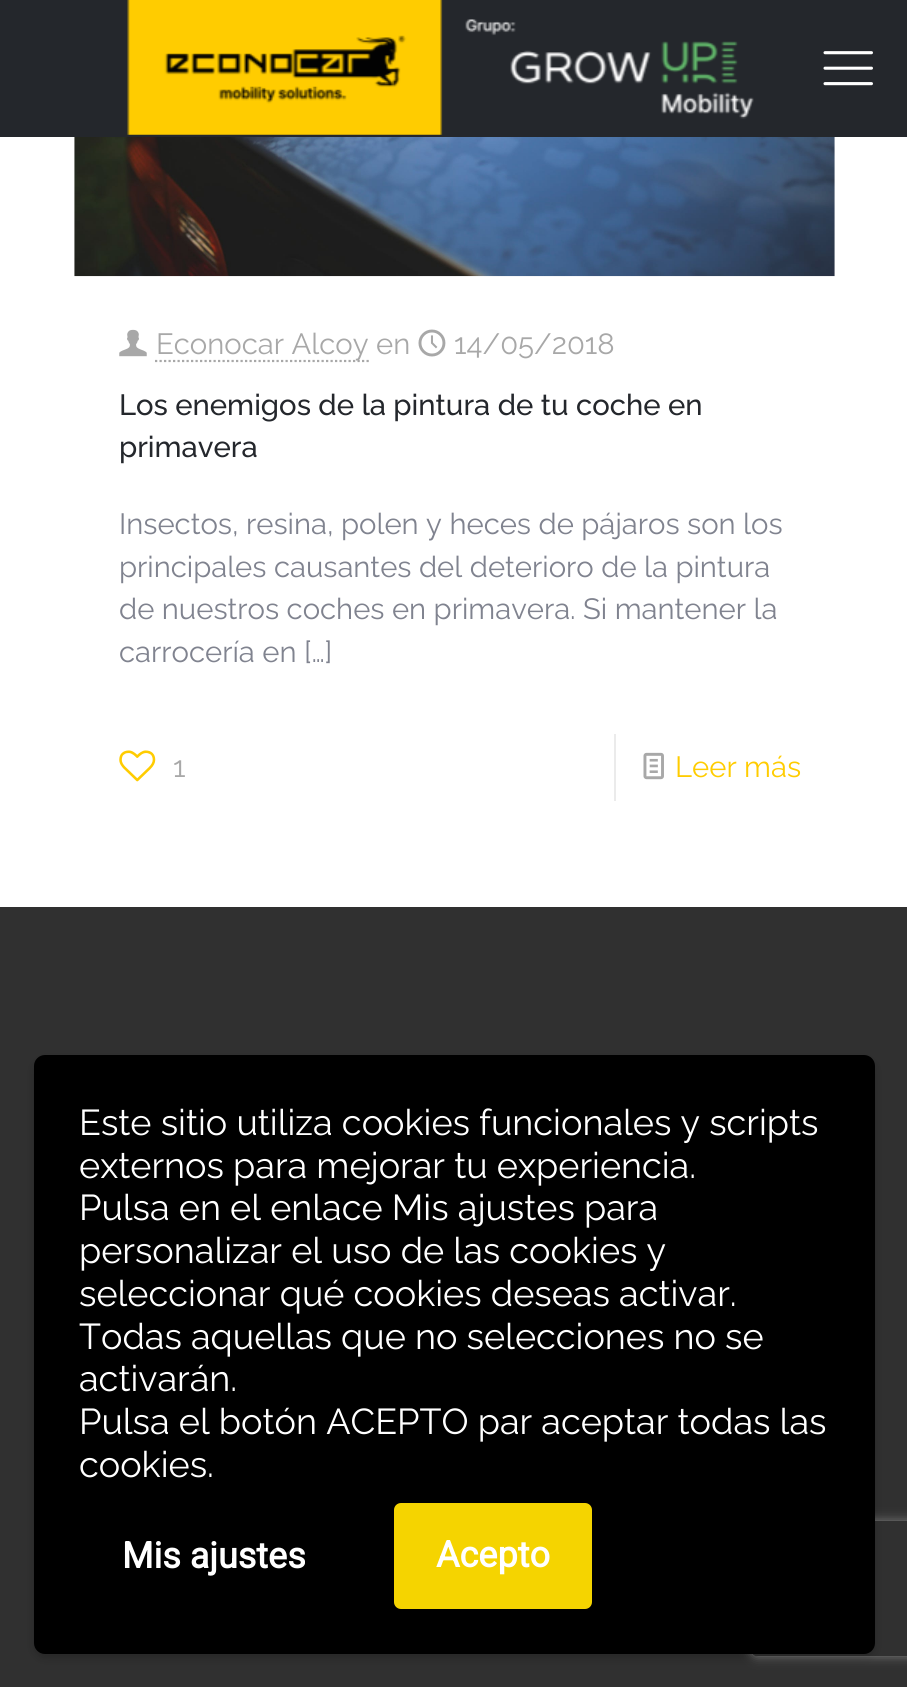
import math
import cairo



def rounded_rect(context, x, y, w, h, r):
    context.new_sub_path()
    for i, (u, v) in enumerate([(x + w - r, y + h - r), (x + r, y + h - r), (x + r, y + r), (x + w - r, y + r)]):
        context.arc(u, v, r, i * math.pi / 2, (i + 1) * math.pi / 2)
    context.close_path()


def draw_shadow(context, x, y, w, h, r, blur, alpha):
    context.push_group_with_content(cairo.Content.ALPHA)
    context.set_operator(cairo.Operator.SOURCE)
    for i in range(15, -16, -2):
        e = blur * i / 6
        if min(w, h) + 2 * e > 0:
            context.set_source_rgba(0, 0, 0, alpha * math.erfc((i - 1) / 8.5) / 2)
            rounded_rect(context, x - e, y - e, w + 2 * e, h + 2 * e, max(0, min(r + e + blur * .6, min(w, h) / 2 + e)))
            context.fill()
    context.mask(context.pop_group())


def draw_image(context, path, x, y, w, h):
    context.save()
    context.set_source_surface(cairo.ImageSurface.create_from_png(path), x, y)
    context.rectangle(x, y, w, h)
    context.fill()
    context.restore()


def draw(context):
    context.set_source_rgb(1, 1, 1)
    context.paint()
    context.set_source_rgb(36 / 255, 39 / 255, 44 / 255)
    context.rectangle(0, 0, 907, 137)
    context.fill()
    draw_image(context, "images/1.png", 127, 0, 627, 135)
    draw_image(context, "images/2.png", 823, 51, 50, 35)
    draw_image(context, "images/3.png", 74, 137, 761, 140)
    draw_image(context, "images/4.png", 119, 329, 28, 28)
    context.new_path()
    context.move_to(155, 361)
    context.line_to(369, 361)
    context.set_source_rgb(168 / 255, 168 / 255, 168 / 255)
    context.set_line_width(2.2)
    context.set_dash([2.25, 2.25])
    context.stroke()
    draw_image(context, "images/5.png", 418, 329, 28, 28)
    draw_image(context, "images/6.png", 119, 750, 37, 32)
    context.set_source_rgb(235 / 255, 235 / 255, 235 / 255)
    context.rectangle(614, 734, 2, 67)
    context.fill()
    draw_image(context, "images/7.png", 643, 752, 21, 28)
    context.set_source_rgb(48 / 255, 48 / 255, 48 / 255)
    context.rectangle(0, 907, 907, 780)
    context.fill()
    context.set_source_rgb(0, 0, 0)
    draw_shadow(context, 34, 1060, 841, 598, 11, 4.5, 0.2)
    context.save()
    context.set_fill_rule(cairo.FillRule.EVEN_ODD)
    context.new_path()
    context.move_to(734, 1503)
    context.line_to(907, 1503)
    context.line_to(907, 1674)
    context.line_to(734, 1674)
    context.close_path()
    context.move_to(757, 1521)
    context.line_to(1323, 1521)
    context.curve_to(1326, 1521, 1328, 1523, 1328, 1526)
    context.line_to(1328, 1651)
    context.curve_to(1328, 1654, 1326, 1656, 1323, 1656)
    context.line_to(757, 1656)
    context.curve_to(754, 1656, 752, 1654, 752, 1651)
    context.line_to(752, 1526)
    context.curve_to(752, 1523, 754, 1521, 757, 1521)
    context.close_path()
    context.clip()
    context.set_source_rgb(128 / 255, 128 / 255, 128 / 255)
    draw_shadow(context, 752, 1521, 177, 135, 5, 5.5, 1)
    context.restore()
    context.set_source_rgb(0, 0, 0)
    rounded_rect(context, 34, 1055, 841, 599, 11)
    context.fill()
    context.set_source_rgb(245 / 255, 212 / 255, 0)
    rounded_rect(context, 395, 1504, 196, 104, 6)
    context.fill_preserve()
    context.set_line_width(2)
    context.set_dash([])
    context.stroke()
    context.select_font_face("Raleway")
    context.set_font_size(29.25)
    context.set_source_rgb(168 / 255, 168 / 255, 168 / 255)
    context.move_to(156, 354)
    context.show_text("Econocar Alcoy en")
    context.move_to(454, 354)
    context.show_text("14/05/2018")
    context.select_font_face("Raleway Medium")
    context.set_source_rgb(36 / 255, 39 / 255, 44 / 255)
    context.move_to(119, 415)
    context.show_text("Los enemigos de la pintura de tu coche en")
    context.move_to(119, 457)
    context.show_text("primavera")
    context.select_font_face("Raleway")
    context.set_source_rgb(128 / 255, 131 / 255, 143 / 255)
    context.move_to(119, 534)
    context.show_text("Insectos, resina, polen y heces de pájaros son los")
    context.move_to(119, 577)
    context.show_text("principales causantes del deterioro de la pintura")
    context.move_to(119, 619)
    context.show_text("de nuestros coches en primavera. Si mantener la")
    context.move_to(119, 662)
    context.show_text("carrocería en […]")
    context.set_source_rgb(168 / 255, 168 / 255, 168 / 255)
    context.move_to(173, 777)
    context.show_text("1")
    context.set_source_rgb(1, 204 / 255, 0)
    context.move_to(675, 777)
    context.show_text("Leer más")
    context.set_font_size(36)
    context.set_source_rgb(1, 1, 1)
    context.move_to(79, 1135)
    context.show_text("Este sitio utiliza cookies funcionales y scripts")
    context.move_to(79, 1178)
    context.show_text("externos para mejorar tu experiencia.")
    context.move_to(79, 1220)
    context.show_text("Pulsa en el enlace Mis ajustes para")
    context.move_to(79, 1263)
    context.show_text("personalizar el uso de las cookies y")
    context.move_to(79, 1306)
    context.show_text("seleccionar qué cookies deseas activar.")
    context.move_to(79, 1349)
    context.show_text("Todas aquellas que no selecciones no se")
    context.move_to(79, 1391)
    context.show_text("activarán.")
    context.move_to(79, 1434)
    context.show_text("Pulsa el botón ACEPTO par aceptar todas las")
    context.move_to(79, 1477)
    context.show_text("cookies.")
    context.select_font_face("Roboto", cairo.FontSlant.NORMAL, cairo.FontWeight.BOLD)
    context.move_to(122, 1568)
    context.show_text("Mis ajustes")
    context.move_to(436, 1567)
    context.show_text("Acepto")


surface = cairo.ImageSurface(cairo.Format.RGB24, 907, 1687)
context = cairo.Context(surface)
options = cairo.FontOptions()
options.set_hint_metrics(cairo.HintMetrics.OFF)
options.set_hint_style(cairo.HintStyle.NONE)
context.set_font_options(options)
context.set_miter_limit(4)
draw(context)
surface.write_to_png("out.png")
